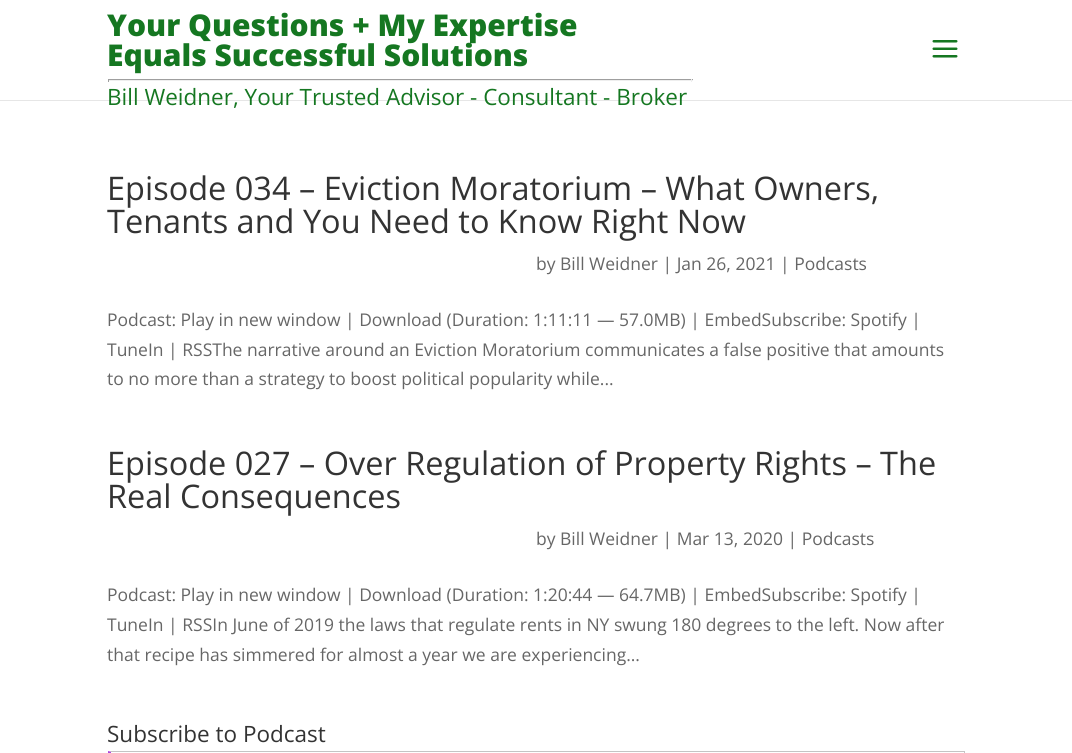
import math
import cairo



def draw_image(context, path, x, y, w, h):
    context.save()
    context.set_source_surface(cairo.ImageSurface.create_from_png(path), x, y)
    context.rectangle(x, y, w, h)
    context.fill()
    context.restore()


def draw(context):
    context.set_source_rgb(1, 1, 1)
    context.paint()
    context.set_source_rgb(230 / 255, 230 / 255, 230 / 255)
    context.new_path()
    context.move_to(0, 100)
    context.line_to(0, 101)
    context.line_to(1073, 101)
    context.line_to(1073, 1)
    context.line_to(1072, 1)
    context.line_to(1072, 100)
    context.close_path()
    context.fill()
    context.set_source_rgb(159 / 255, 159 / 255, 159 / 255)
    context.rectangle(108, 79, 585, 1)
    context.fill()
    context.set_source_rgb(238 / 255, 238 / 255, 238 / 255)
    context.rectangle(691, 79, 1, 3)
    context.fill()
    context.rectangle(108, 80, 585, 1)
    context.fill()
    context.set_source_rgb(159 / 255, 159 / 255, 159 / 255)
    context.rectangle(108, 79, 1, 3)
    context.fill()
    draw_image(context, "images/1.png", 932, 40, 26, 18)
    context.set_source_rgb(196 / 255, 196 / 255, 196 / 255)
    context.new_path()
    context.move_to(108, 751)
    context.line_to(965, 751)
    context.line_to(964, 752)
    context.line_to(111, 752)
    context.close_path()
    context.fill()
    context.rectangle(964, 751, 1, 2)
    context.fill()
    context.set_source_rgb(171 / 255, 66 / 255, 223 / 255)
    context.new_path()
    context.move_to(108, 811)
    context.line_to(108, 751)
    context.line_to(111, 752)
    context.line_to(111, 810)
    context.close_path()
    context.fill()
    context.select_font_face("Open Sans ExtraBold")
    context.set_font_size(30)
    context.set_source_rgb(21 / 255, 119 / 255, 33 / 255)
    context.move_to(107, 36)
    context.show_text("Your Questions + My Expertise")
    context.move_to(107, 66)
    context.show_text("Equals Successful Solutions")
    context.select_font_face("Open Sans")
    context.set_font_size(22.5)
    context.move_to(107, 105)
    context.show_text("Bill Weidner, Your Trusted Advisor - Consultant - Broker")
    context.set_font_size(32.5)
    context.set_source_rgb(51 / 255, 51 / 255, 51 / 255)
    context.move_to(107, 200)
    context.show_text("Episode 034 – Eviction Moratorium – What Owners,")
    context.move_to(107, 233)
    context.show_text("Tenants and You Need to Know Right Now")
    context.set_font_size(17.5)
    context.set_source_rgb(102 / 255, 102 / 255, 102 / 255)
    context.move_to(536, 270)
    context.show_text("by Bill Weidner | Jan 26, 2021 | Podcasts")
    context.move_to(107, 326)
    context.show_text("Podcast: Play in new window | Download (Duration: 1:11:11 — 57.0MB) | EmbedSubscribe: Spotify |")
    context.move_to(107, 356)
    context.show_text("TuneIn | RSSThe narrative around an Eviction Moratorium communicates a false positive that amounts")
    context.move_to(107, 385)
    context.show_text("to no more than a strategy to boost political popularity while...")
    context.set_font_size(32.5)
    context.set_source_rgb(51 / 255, 51 / 255, 51 / 255)
    context.move_to(107, 475)
    context.show_text("Episode 027 – Over Regulation of Property Rights – The")
    context.move_to(107, 508)
    context.show_text("Real Consequences")
    context.set_font_size(17.5)
    context.set_source_rgb(102 / 255, 102 / 255, 102 / 255)
    context.move_to(536, 545)
    context.show_text("by Bill Weidner | Mar 13, 2020 | Podcasts")
    context.move_to(107, 601)
    context.show_text("Podcast: Play in new window | Download (Duration: 1:20:44 — 64.7MB) | EmbedSubscribe: Spotify |")
    context.move_to(107, 631)
    context.show_text("TuneIn | RSSIn June of 2019 the laws that regulate rents in NY swung 180 degrees to the left. Now after")
    context.move_to(107, 661)
    context.show_text("that recipe has simmered for almost a year we are experiencing...")
    context.set_font_size(22.5)
    context.set_source_rgb(51 / 255, 51 / 255, 51 / 255)
    context.move_to(107, 742)
    context.show_text("Subscribe to Podcast")


surface = cairo.ImageSurface(cairo.Format.RGB24, 1072, 753)
context = cairo.Context(surface)
options = cairo.FontOptions()
options.set_hint_metrics(cairo.HintMetrics.OFF)
options.set_hint_style(cairo.HintStyle.NONE)
context.set_font_options(options)
context.set_miter_limit(4)
draw(context)
surface.write_to_png("out.png")
